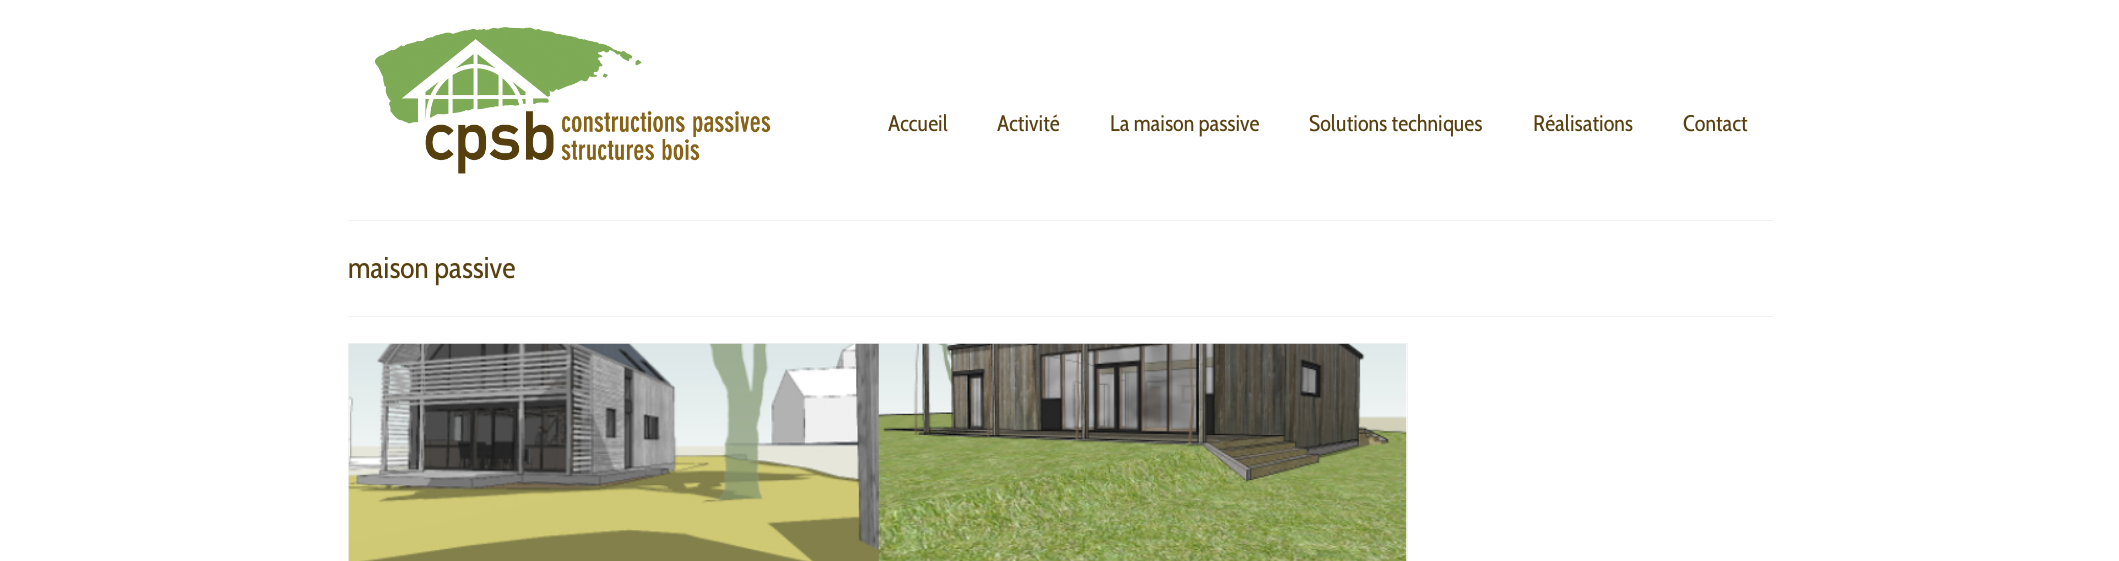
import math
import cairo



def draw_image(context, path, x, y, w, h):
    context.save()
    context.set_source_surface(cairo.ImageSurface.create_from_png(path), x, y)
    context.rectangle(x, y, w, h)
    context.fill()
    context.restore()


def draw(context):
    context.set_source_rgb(1, 1, 1)
    context.paint()
    draw_image(context, "images/1.png", 375, 27, 396, 147)
    context.set_source_rgb(242 / 255, 242 / 255, 242 / 255)
    context.rectangle(348, 220, 1425, 1)
    context.fill()
    context.rectangle(348, 316, 1425, 1)
    context.fill()
    context.rectangle(348.5, 343.5, 1059, 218)
    context.set_line_width(1)
    context.stroke()
    draw_image(context, "images/2.png", 348, 343, 1059, 218)
    context.select_font_face("Cabin Condensed")
    context.set_font_size(22.5)
    context.set_source_rgb(88 / 255, 64 / 255, 16 / 255)
    context.move_to(888, 131)
    context.show_text("Accueil")
    context.move_to(997, 131)
    context.show_text("Activité")
    context.move_to(1110, 131)
    context.show_text("La maison passive")
    context.move_to(1309, 131)
    context.show_text("Solutions techniques")
    context.move_to(1533, 131)
    context.show_text("Réalisations")
    context.move_to(1683, 131)
    context.show_text("Contact")
    context.set_font_size(30)
    context.move_to(348, 278)
    context.show_text("maison passive")


surface = cairo.ImageSurface(cairo.Format.RGB24, 2119, 561)
context = cairo.Context(surface)
options = cairo.FontOptions()
options.set_hint_metrics(cairo.HintMetrics.OFF)
options.set_hint_style(cairo.HintStyle.NONE)
context.set_font_options(options)
context.set_miter_limit(4)
draw(context)
surface.write_to_png("out.png")
